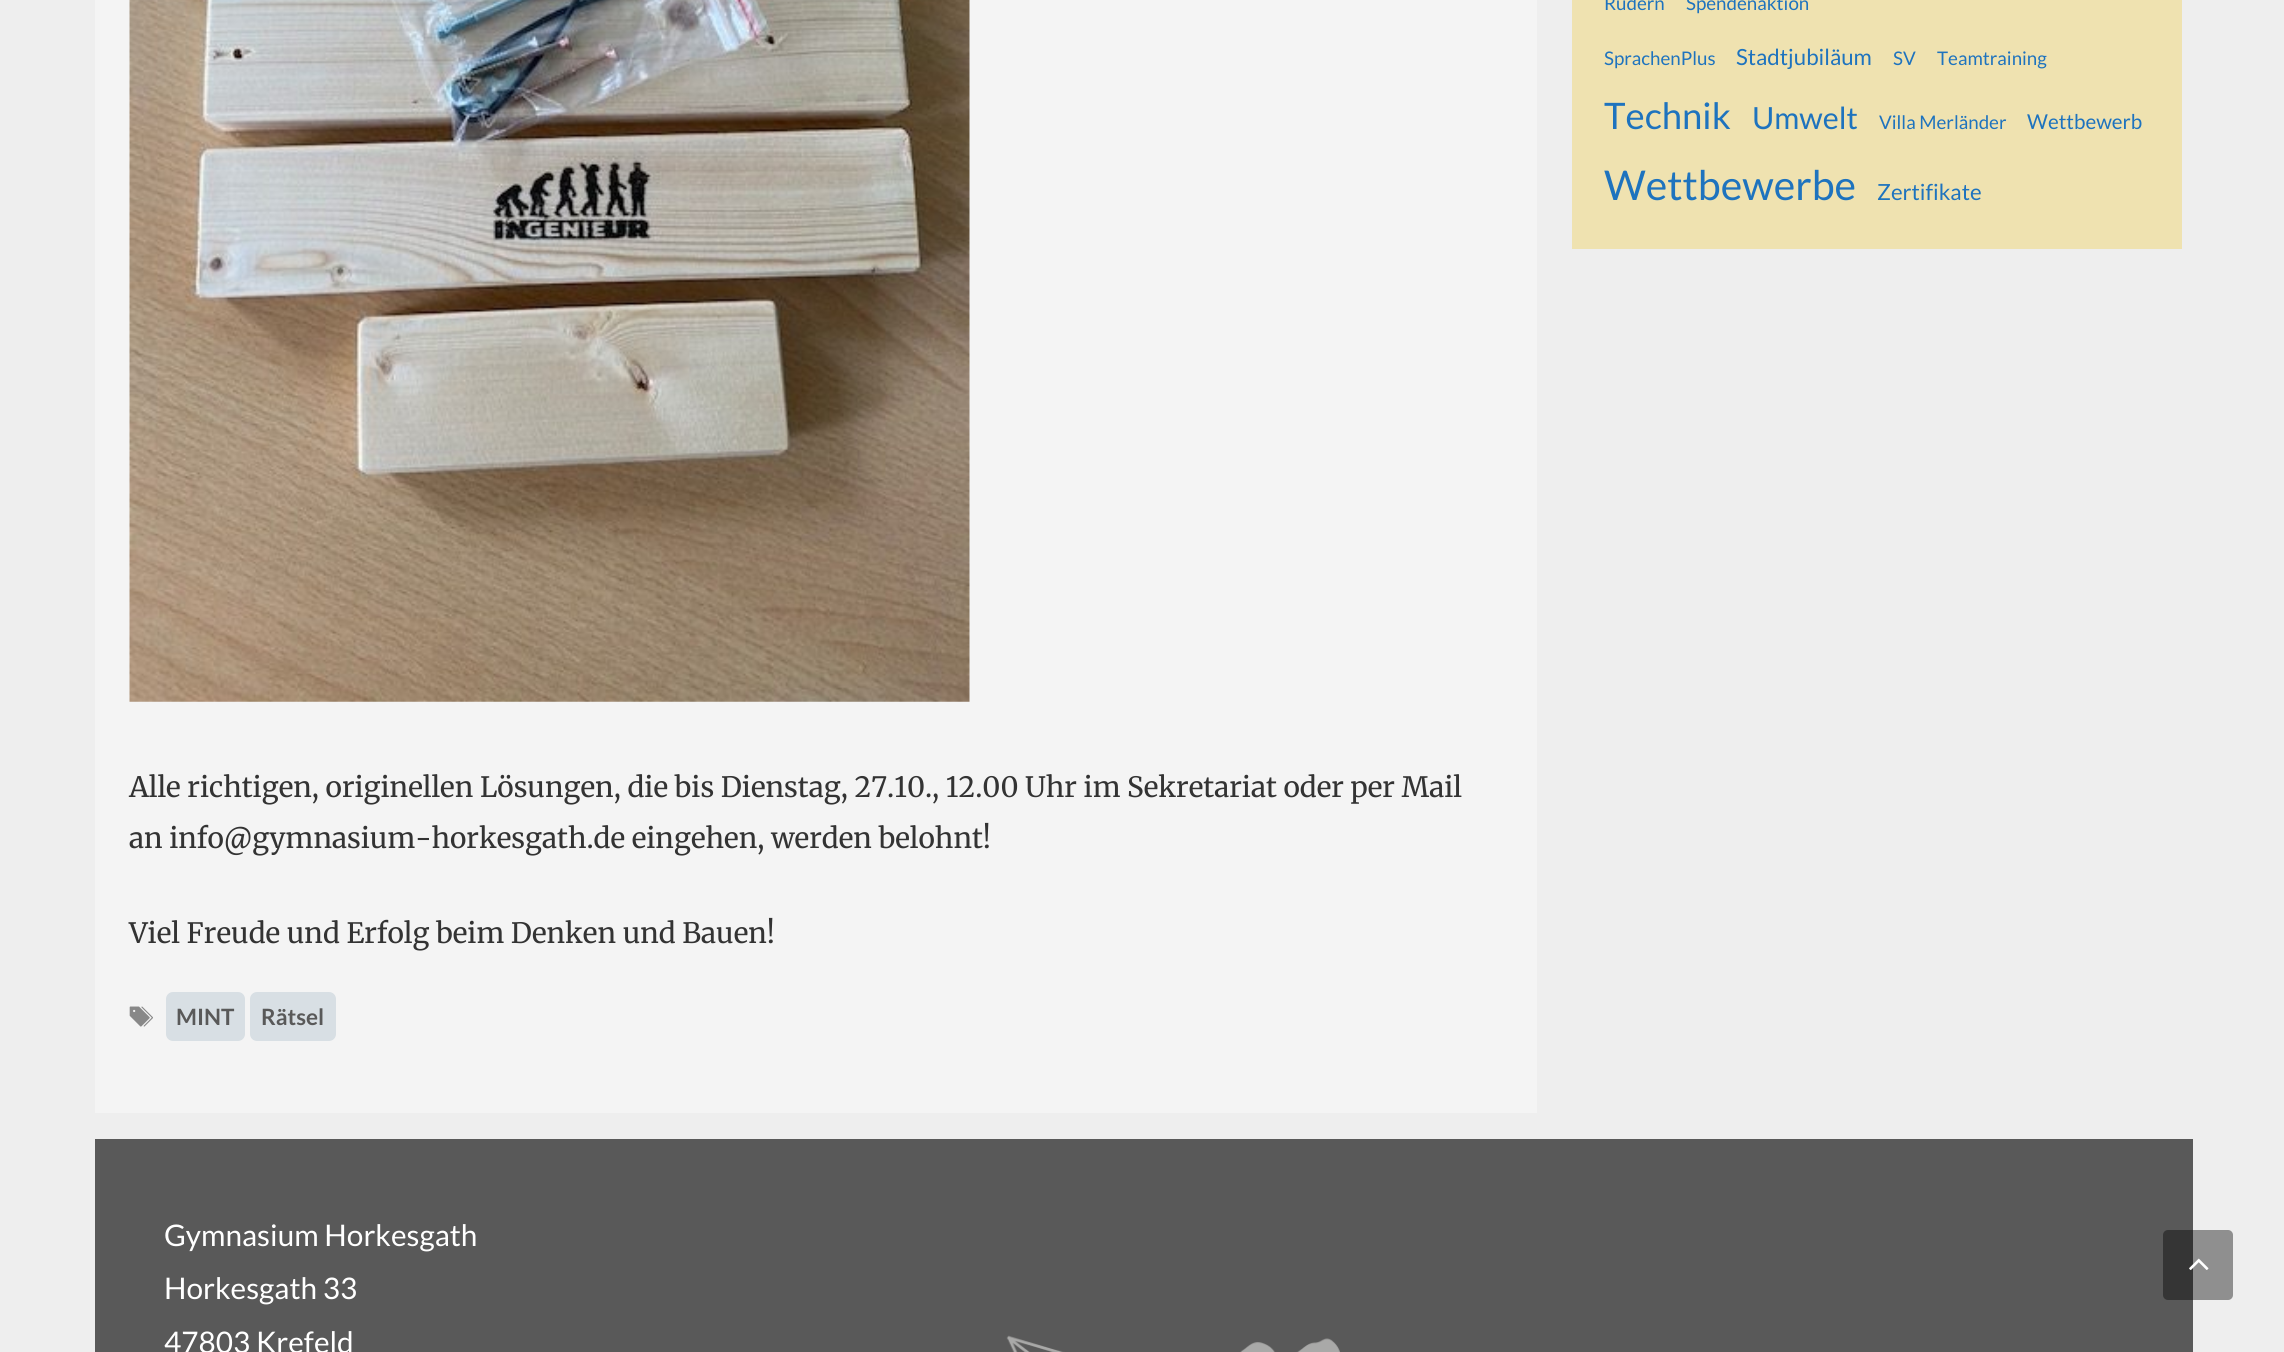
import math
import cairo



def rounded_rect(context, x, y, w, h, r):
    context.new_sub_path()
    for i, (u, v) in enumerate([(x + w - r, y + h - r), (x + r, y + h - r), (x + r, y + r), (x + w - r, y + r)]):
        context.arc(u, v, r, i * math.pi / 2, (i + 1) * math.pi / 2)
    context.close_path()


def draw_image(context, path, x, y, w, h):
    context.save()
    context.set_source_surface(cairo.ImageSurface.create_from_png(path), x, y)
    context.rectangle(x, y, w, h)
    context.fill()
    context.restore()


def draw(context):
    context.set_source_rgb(238 / 255, 238 / 255, 238 / 255)
    context.paint()
    context.set_source_rgb(239 / 255, 226 / 255, 176 / 255)
    context.rectangle(1572, 0, 610, 249)
    context.fill()
    context.set_source_rgb(244 / 255, 244 / 255, 244 / 255)
    context.rectangle(95, 0, 1442, 1113)
    context.fill()
    draw_image(context, "images/1.png", 129, 0, 841, 702)
    draw_image(context, "images/2.png", 129, 1006, 24, 21)
    context.set_source_rgb(216 / 255, 223 / 255, 228 / 255)
    rounded_rect(context, 166, 992, 79, 49, 7)
    context.fill()
    rounded_rect(context, 250, 992, 86, 49, 7)
    context.fill()
    context.set_source_rgb(89 / 255, 89 / 255, 89 / 255)
    context.rectangle(95, 1139, 2098, 213)
    context.fill()
    draw_image(context, "images/3.png", 1006, 1335, 334, 17)
    context.set_source_rgba(0, 0, 0, 0.4)
    rounded_rect(context, 2163, 1230, 70, 70, 5)
    context.fill()
    draw_image(context, "images/4.png", 2189, 1258, 20, 12)
    context.select_font_face("Lato")
    context.set_font_size(18.75)
    context.set_source_rgb(30 / 255, 115 / 255, 190 / 255)
    context.move_to(1604, 10)
    context.show_text("Rudern")
    context.move_to(1686, 10)
    context.show_text("Spendenaktion")
    context.move_to(1604, 65)
    context.show_text("SprachenPlus")
    context.set_font_size(22.25)
    context.move_to(1736, 65)
    context.show_text("Stadtjubiläum")
    context.set_font_size(18.75)
    context.move_to(1893, 65)
    context.show_text("SV")
    context.move_to(1937, 65)
    context.show_text("Teamtraining")
    context.set_font_size(36.5)
    context.move_to(1604, 129)
    context.show_text("Technik")
    context.set_font_size(30.5)
    context.move_to(1752, 129)
    context.show_text("Umwelt")
    context.set_font_size(18.75)
    context.move_to(1879, 129)
    context.show_text("Villa Merländer")
    context.set_font_size(20.5)
    context.move_to(2027, 129)
    context.show_text("Wettbewerb")
    context.set_font_size(41)
    context.move_to(1604, 200)
    context.show_text("Wettbewerbe")
    context.set_font_size(22.25)
    context.move_to(1877, 200)
    context.show_text("Zertifikate")
    context.select_font_face("Merriweather")
    context.set_font_size(28)
    context.set_source_rgb(51 / 255, 51 / 255, 51 / 255)
    context.move_to(129, 797)
    context.show_text("Alle richtigen, originellen Lösungen, die bis Dienstag, 27.10., 12.00 Uhr im Sekretariat oder per Mail")
    context.move_to(129, 848)
    context.show_text("an info@gymnasium-horkesgath.de eingehen, werden belohnt!")
    context.move_to(129, 943)
    context.show_text("Viel Freude und Erfolg beim Denken und Bauen!")
    context.select_font_face("Lato", cairo.FontSlant.NORMAL, cairo.FontWeight.BOLD)
    context.set_font_size(22.5)
    context.set_source_rgb(89 / 255, 89 / 255, 89 / 255)
    context.move_to(176, 1025)
    context.show_text("MINT")
    context.move_to(261, 1025)
    context.show_text("Rätsel")
    context.select_font_face("Lato")
    context.set_font_size(29.75)
    context.set_source_rgb(1, 1, 1)
    context.move_to(164, 1246)
    context.show_text("Gymnasium Horkesgath")
    context.move_to(164, 1299)
    context.show_text("Horkesgath 33")
    context.move_to(164, 1353)
    context.show_text("47803 Krefeld")


surface = cairo.ImageSurface(cairo.Format.RGB24, 2284, 1352)
context = cairo.Context(surface)
options = cairo.FontOptions()
options.set_hint_metrics(cairo.HintMetrics.OFF)
options.set_hint_style(cairo.HintStyle.NONE)
context.set_font_options(options)
context.set_miter_limit(4)
draw(context)
surface.write_to_png("out.png")
